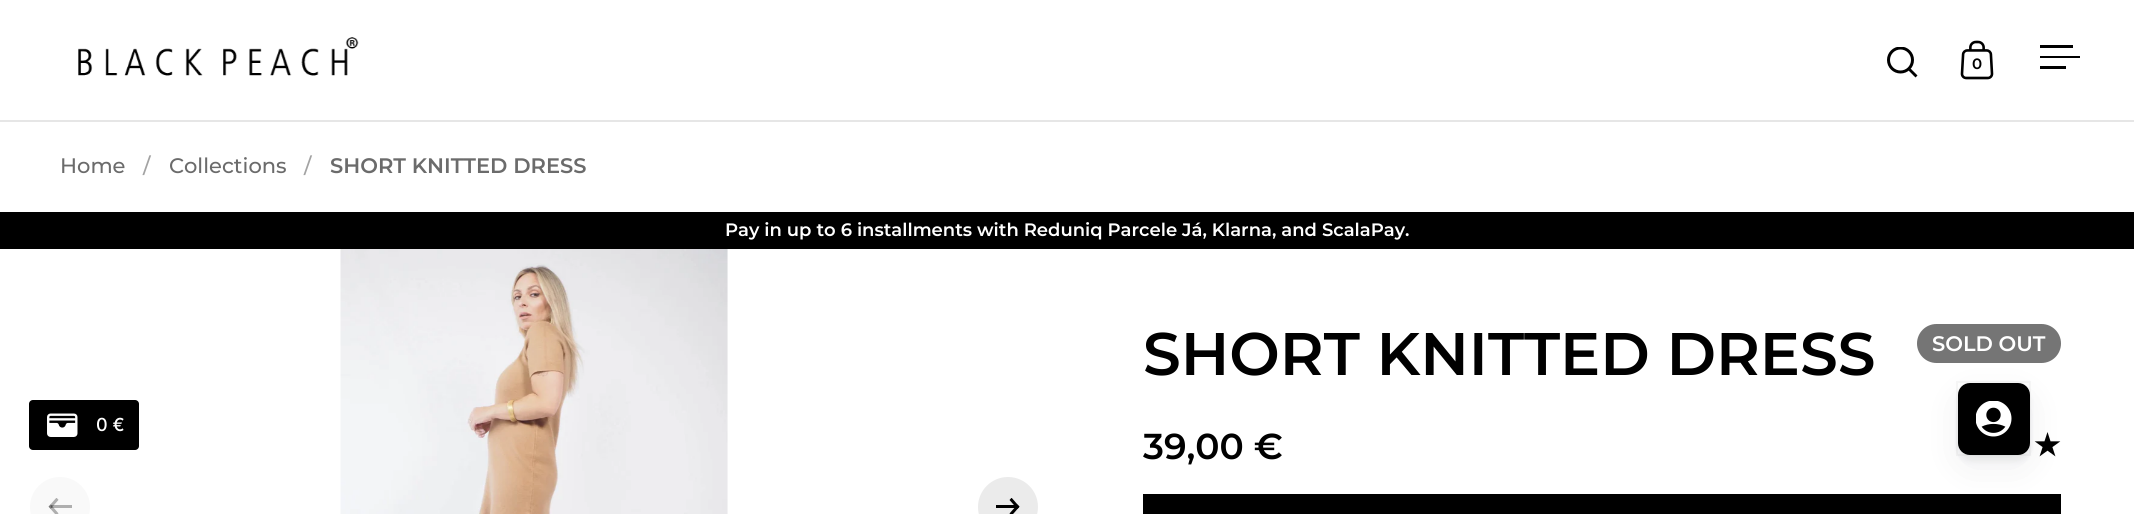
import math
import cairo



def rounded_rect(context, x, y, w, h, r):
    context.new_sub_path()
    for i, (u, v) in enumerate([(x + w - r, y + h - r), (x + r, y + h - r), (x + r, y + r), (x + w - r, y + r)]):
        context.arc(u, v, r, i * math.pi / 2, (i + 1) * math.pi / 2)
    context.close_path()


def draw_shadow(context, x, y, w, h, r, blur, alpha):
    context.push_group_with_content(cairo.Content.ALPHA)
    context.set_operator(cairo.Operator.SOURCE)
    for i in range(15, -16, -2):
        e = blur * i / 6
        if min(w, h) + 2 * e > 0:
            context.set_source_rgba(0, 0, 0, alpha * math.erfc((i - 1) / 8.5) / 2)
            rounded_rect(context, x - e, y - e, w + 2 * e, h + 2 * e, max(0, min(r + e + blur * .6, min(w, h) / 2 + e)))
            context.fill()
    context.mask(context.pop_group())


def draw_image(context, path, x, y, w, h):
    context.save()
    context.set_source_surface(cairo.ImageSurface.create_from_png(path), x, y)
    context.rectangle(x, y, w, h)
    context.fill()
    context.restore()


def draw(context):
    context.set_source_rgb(1, 1, 1)
    context.paint()
    context.set_source_rgb(230 / 255, 230 / 255, 230 / 255)
    context.rectangle(0, 120, 2134, 2)
    context.fill()
    draw_image(context, "images/1.png", 78, 37, 281, 39)
    context.save()
    context.rectangle(1887, 47, 32, 31)
    context.clip()
    context.arc(1900.5, 60, 12, 0, 2 * math.pi)
    context.set_source_rgb(0, 0, 0)
    context.set_line_width(3)
    context.stroke()
    context.restore()
    context.set_source_rgb(0, 0, 0)
    context.new_path()
    context.move_to(1908.5, 70.5)
    context.line_to(1910.5, 68.5)
    context.line_to(1917.5, 75.5)
    context.line_to(1915.5, 77.5)
    context.close_path()
    context.fill()
    draw_image(context, "images/2.png", 1960, 40, 34, 40)
    context.rectangle(2040, 45, 33, 3)
    context.fill()
    context.rectangle(2040, 56, 40, 2)
    context.fill()
    context.rectangle(2040, 66, 26, 3)
    context.fill()
    context.rectangle(0, 212, 2134, 37)
    context.fill()
    draw_image(context, "images/3.png", 340, 249, 388, 265)
    context.set_source_rgb(249 / 255, 249 / 255, 249 / 255)
    context.arc(60, 507, 30, 0, 2 * math.pi)
    context.fill()
    draw_image(context, "images/4.png", 48, 498, 24, 16)
    context.set_source_rgb(235 / 255, 235 / 255, 235 / 255)
    context.arc(1008, 507, 30, 0, 2 * math.pi)
    context.fill()
    draw_image(context, "images/5.png", 996, 498, 24, 16)
    context.set_source_rgb(117 / 255, 117 / 255, 117 / 255)
    rounded_rect(context, 1917, 324, 144, 39, 19.5)
    context.fill()
    draw_image(context, "images/6.png", 2034, 432, 27, 25)
    context.set_source_rgb(0, 0, 0)
    context.rectangle(1143, 494, 918, 20)
    context.fill()
    rounded_rect(context, 26.5, 397.5, 115, 55, 6.5)
    context.fill_preserve()
    context.set_source_rgb(1, 1, 1)
    context.set_line_width(5)
    context.stroke()
    draw_image(context, "images/7.png", 47, 413, 31, 24)
    context.set_source_rgb(55 / 255, 63 / 255, 71 / 255)
    draw_shadow(context, 1958, 395, 72, 72, 12, 18, 0.08)
    draw_shadow(context, 1958, 389, 72, 72, 12, 3, 0.08)
    context.rectangle(1957, 382, 73, 73)
    context.set_source_rgba(55 / 255, 63 / 255, 71 / 255, 0.04)
    context.set_line_width(2)
    context.stroke()
    context.set_source_rgb(0, 0, 0)
    rounded_rect(context, 1958, 383, 72, 72, 12)
    context.fill()
    draw_image(context, "images/8.png", 1976, 401, 36, 36)
    context.select_font_face("Montserrat SemiBold")
    context.set_font_size(15)
    context.move_to(1972, 69)
    context.show_text("0")
    context.select_font_face("Montserrat Medium")
    context.set_font_size(21)
    context.set_source_rgb(107 / 255, 107 / 255, 107 / 255)
    context.move_to(60, 173)
    context.show_text("Home")
    context.set_source_rgb(163 / 255, 163 / 255, 163 / 255)
    context.move_to(143, 173)
    context.show_text("/")
    context.set_source_rgb(107 / 255, 107 / 255, 107 / 255)
    context.move_to(169, 173)
    context.show_text("Collections")
    context.set_source_rgb(163 / 255, 163 / 255, 163 / 255)
    context.move_to(304, 173)
    context.show_text("/")
    context.select_font_face("Montserrat SemiBold")
    context.set_source_rgb(107 / 255, 107 / 255, 107 / 255)
    context.move_to(330, 173)
    context.show_text("SHORT KNITTED DRESS")
    context.set_font_size(18)
    context.set_source_rgb(1, 1, 1)
    context.move_to(725, 236)
    context.show_text("Pay in up to 6 installments with Reduniq Parcele Já, Klarna, and ScalaPay.")
    context.set_font_size(60)
    context.set_source_rgb(0, 0, 0)
    context.move_to(1143, 375)
    context.show_text("SHORT KNITTED DRESS")
    context.set_font_size(21)
    context.set_source_rgb(1, 1, 1)
    context.move_to(1932, 351)
    context.show_text("SOLD OUT")
    context.set_font_size(36)
    context.set_source_rgb(0, 0, 0)
    context.move_to(1143, 459)
    context.show_text("39,00 €")
    context.select_font_face("Inter Medium")
    context.set_font_size(18)
    context.set_source_rgb(1, 1, 1)
    context.move_to(96, 431)
    context.show_text("0 €")


surface = cairo.ImageSurface(cairo.Format.RGB24, 2134, 514)
context = cairo.Context(surface)
options = cairo.FontOptions()
options.set_hint_metrics(cairo.HintMetrics.OFF)
options.set_hint_style(cairo.HintStyle.NONE)
context.set_font_options(options)
context.set_miter_limit(4)
draw(context)
surface.write_to_png("out.png")
